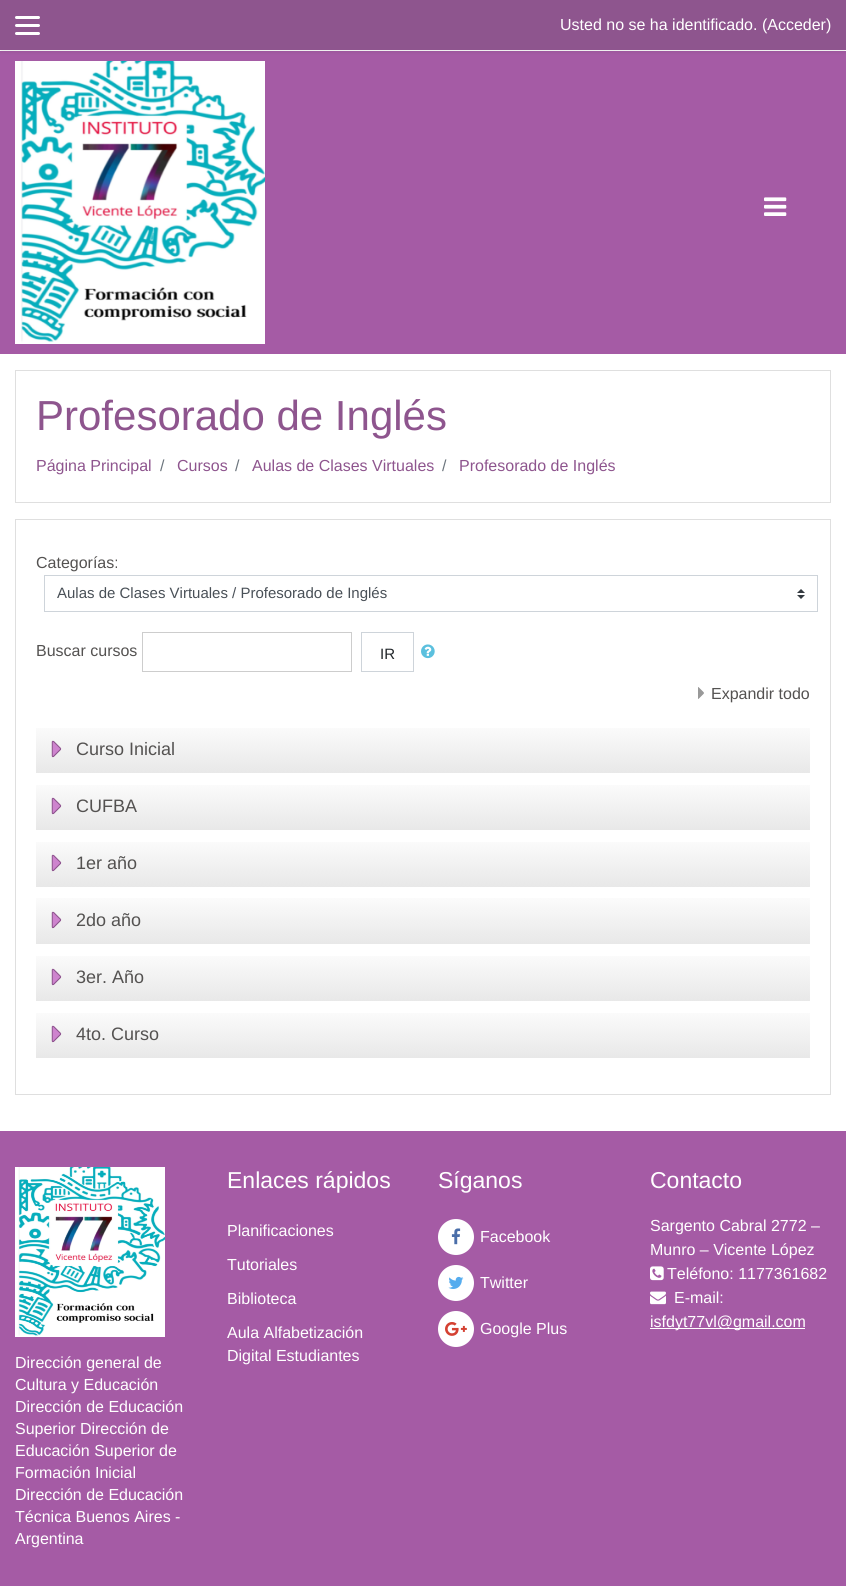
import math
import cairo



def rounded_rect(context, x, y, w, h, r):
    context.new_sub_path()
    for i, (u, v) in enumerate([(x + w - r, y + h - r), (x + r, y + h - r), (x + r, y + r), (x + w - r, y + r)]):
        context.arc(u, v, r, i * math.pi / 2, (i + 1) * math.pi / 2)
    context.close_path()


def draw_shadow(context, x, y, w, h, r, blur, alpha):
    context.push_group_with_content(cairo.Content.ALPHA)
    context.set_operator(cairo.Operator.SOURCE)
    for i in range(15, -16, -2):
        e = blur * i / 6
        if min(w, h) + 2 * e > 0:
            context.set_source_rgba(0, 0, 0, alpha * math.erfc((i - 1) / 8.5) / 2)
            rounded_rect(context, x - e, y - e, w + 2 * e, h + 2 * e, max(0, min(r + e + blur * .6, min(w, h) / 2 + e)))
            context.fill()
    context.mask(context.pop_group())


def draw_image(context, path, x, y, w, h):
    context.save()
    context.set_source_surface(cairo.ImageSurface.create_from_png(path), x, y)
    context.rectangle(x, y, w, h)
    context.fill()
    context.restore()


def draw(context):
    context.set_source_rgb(1, 1, 1)
    context.paint()
    context.set_source_rgb(165 / 255, 91 / 255, 165 / 255)
    context.rectangle(0, 51, 846, 303)
    context.fill()
    context.set_source_rgb(0, 0, 0)
    draw_shadow(context, 0, 2, 846, 50, 0, 2, 0.08)
    context.set_source_rgb(142 / 255, 85 / 255, 142 / 255)
    context.rectangle(0, 0, 846, 50)
    context.fill()
    context.set_source_rgb(1, 1, 1)
    rounded_rect(context, 15, 16, 25, 3, 1.5)
    context.fill()
    rounded_rect(context, 15, 24, 25, 3, 1.5)
    context.fill()
    rounded_rect(context, 15, 32, 25, 3, 1.5)
    context.fill()
    draw_image(context, "images/1.png", 15, 61, 250, 283)
    draw_image(context, "images/2.png", 764, 197, 23, 19)
    context.rectangle(15.5, 370.5, 815, 132)
    context.set_source_rgb(223 / 255, 223 / 255, 223 / 255)
    context.set_line_width(1)
    context.stroke()
    context.rectangle(15.5, 519.5, 815, 575)
    context.stroke()
    draw_image(context, "images/3.png", 797, 589, 8, 10)
    context.rectangle(44.5, 575.5, 773, 36)
    context.set_source_rgb(206 / 255, 212 / 255, 218 / 255)
    context.stroke()
    context.rectangle(142.5, 632.5, 209, 39)
    context.set_source_rgb(205 / 255, 205 / 255, 205 / 255)
    context.stroke()
    context.rectangle(361.5, 632.5, 52, 39)
    context.set_source_rgb(206 / 255, 212 / 255, 218 / 255)
    context.stroke()
    draw_image(context, "images/4.png", 421, 644, 14, 15)
    draw_image(context, "images/5.png", 698, 687, 6, 12)
    draw_image(context, "images/6.png", 36, 728, 774, 45)
    draw_image(context, "images/7.png", 51, 740, 11, 18)
    draw_image(context, "images/8.png", 36, 785, 774, 45)
    draw_image(context, "images/9.png", 51, 797, 11, 18)
    draw_image(context, "images/10.png", 36, 842, 774, 45)
    draw_image(context, "images/11.png", 51, 854, 11, 18)
    draw_image(context, "images/12.png", 36, 898, 774, 46)
    draw_image(context, "images/13.png", 51, 911, 11, 18)
    draw_image(context, "images/14.png", 36, 956, 774, 45)
    draw_image(context, "images/15.png", 51, 968, 11, 18)
    draw_image(context, "images/16.png", 36, 1013, 774, 45)
    draw_image(context, "images/17.png", 51, 1025, 11, 18)
    context.set_source_rgb(165 / 255, 91 / 255, 165 / 255)
    context.rectangle(0, 1131, 846, 455)
    context.fill()
    context.set_source_rgb(1, 1, 1)
    context.arc(456, 1237, 18, 0, 2 * math.pi)
    context.fill()
    draw_image(context, "images/18.png", 451, 1228, 10, 17)
    context.arc(456, 1283, 18, 0, 2 * math.pi)
    context.fill()
    draw_image(context, "images/19.png", 448, 1276, 16, 13)
    context.arc(456, 1329, 18, 0, 2 * math.pi)
    context.fill()
    draw_image(context, "images/20.png", 445, 1322, 22, 14)
    draw_image(context, "images/21.png", 650, 1266, 14, 15)
    draw_image(context, "images/22.png", 650, 1291, 16, 14)
    context.rectangle(650, 1328, 155, 1)
    context.fill()
    draw_image(context, "images/23.png", 15, 1167, 150, 170)
    context.select_font_face("Liberation Sans")
    context.set_font_size(16)
    context.move_to(560, 30)
    context.show_text("Usted no se ha identificado. (Acceder)")
    context.set_font_size(42)
    context.set_source_rgb(142 / 255, 85 / 255, 142 / 255)
    context.move_to(36, 430)
    context.show_text("Profesorado de Inglés")
    context.set_font_size(16)
    context.move_to(36, 471)
    context.show_text("Página Principal")
    context.set_source_rgb(108 / 255, 117 / 255, 125 / 255)
    context.move_to(160, 471)
    context.show_text("/")
    context.set_source_rgb(142 / 255, 85 / 255, 142 / 255)
    context.move_to(177, 471)
    context.show_text("Cursos")
    context.set_source_rgb(108 / 255, 117 / 255, 125 / 255)
    context.move_to(235, 471)
    context.show_text("/")
    context.set_source_rgb(142 / 255, 85 / 255, 142 / 255)
    context.move_to(252, 471)
    context.show_text("Aulas de Clases Virtuales")
    context.set_source_rgb(108 / 255, 117 / 255, 125 / 255)
    context.move_to(442, 471)
    context.show_text("/")
    context.set_source_rgb(142 / 255, 85 / 255, 142 / 255)
    context.move_to(459, 471)
    context.show_text("Profesorado de Inglés")
    context.set_source_rgb(84 / 255, 82 / 255, 81 / 255)
    context.move_to(36, 568)
    context.show_text("Categorías:")
    context.set_font_size(15)
    context.set_source_rgb(73 / 255, 80 / 255, 87 / 255)
    context.move_to(57, 598)
    context.show_text("Aulas de Clases Virtuales / Profesorado de Inglés")
    context.set_font_size(16)
    context.set_source_rgb(84 / 255, 82 / 255, 81 / 255)
    context.move_to(36, 656)
    context.show_text("Buscar cursos")
    context.set_font_size(15)
    context.set_source_rgb(33 / 255, 37 / 255, 41 / 255)
    context.move_to(380, 659)
    context.show_text("IR")
    context.set_font_size(16)
    context.set_source_rgb(84 / 255, 82 / 255, 81 / 255)
    context.move_to(711, 699)
    context.show_text("Expandir todo")
    context.set_font_size(18)
    context.move_to(76, 755)
    context.show_text("Curso Inicial")
    context.move_to(76, 812)
    context.show_text("CUFBA")
    context.move_to(76, 869)
    context.show_text("1er año")
    context.move_to(76, 926)
    context.show_text("2do año")
    context.move_to(76, 983)
    context.show_text("3er. Año")
    context.move_to(76, 1040)
    context.show_text("4to. Curso")
    context.set_font_size(23)
    context.set_source_rgb(1, 1, 1)
    context.move_to(227, 1188)
    context.show_text("Enlaces rápidos")
    context.set_font_size(16)
    context.move_to(227, 1236)
    context.show_text("Planificaciones")
    context.move_to(227, 1270)
    context.show_text("Tutoriales")
    context.move_to(227, 1304)
    context.show_text("Biblioteca")
    context.move_to(227, 1338)
    context.show_text("Aula Alfabetización")
    context.move_to(227, 1361)
    context.show_text("Digital Estudiantes")
    context.set_font_size(23)
    context.move_to(438, 1188)
    context.show_text("Síganos")
    context.set_font_size(16)
    context.move_to(480, 1242)
    context.show_text("Facebook")
    context.move_to(480, 1288)
    context.show_text("Twitter")
    context.move_to(480, 1334)
    context.show_text("Google Plus")
    context.set_font_size(23)
    context.move_to(650, 1188)
    context.show_text("Contacto")
    context.set_font_size(16)
    context.move_to(650, 1231)
    context.show_text("Sargento Cabral 2772 –")
    context.move_to(650, 1255)
    context.show_text("Munro – Vicente López")
    context.move_to(667, 1279)
    context.show_text("Teléfono: 1177361682")
    context.move_to(674, 1303)
    context.show_text("E-mail:")
    context.move_to(650, 1327)
    context.show_text("isfdyt77vl@gmail.com")
    context.move_to(15, 1368)
    context.show_text("Dirección general de")
    context.move_to(15, 1390)
    context.show_text("Cultura y Educación")
    context.move_to(15, 1412)
    context.show_text("Dirección de Educación")
    context.move_to(15, 1434)
    context.show_text("Superior Dirección de")
    context.move_to(15, 1456)
    context.show_text("Educación Superior de")
    context.move_to(15, 1478)
    context.show_text("Formación Inicial")
    context.move_to(15, 1500)
    context.show_text("Dirección de Educación")
    context.move_to(15, 1522)
    context.show_text("Técnica Buenos Aires -")
    context.move_to(15, 1544)
    context.show_text("Argentina")


surface = cairo.ImageSurface(cairo.Format.RGB24, 846, 1586)
context = cairo.Context(surface)
options = cairo.FontOptions()
options.set_hint_metrics(cairo.HintMetrics.OFF)
options.set_hint_style(cairo.HintStyle.NONE)
context.set_font_options(options)
context.set_miter_limit(4)
draw(context)
surface.write_to_png("out.png")
